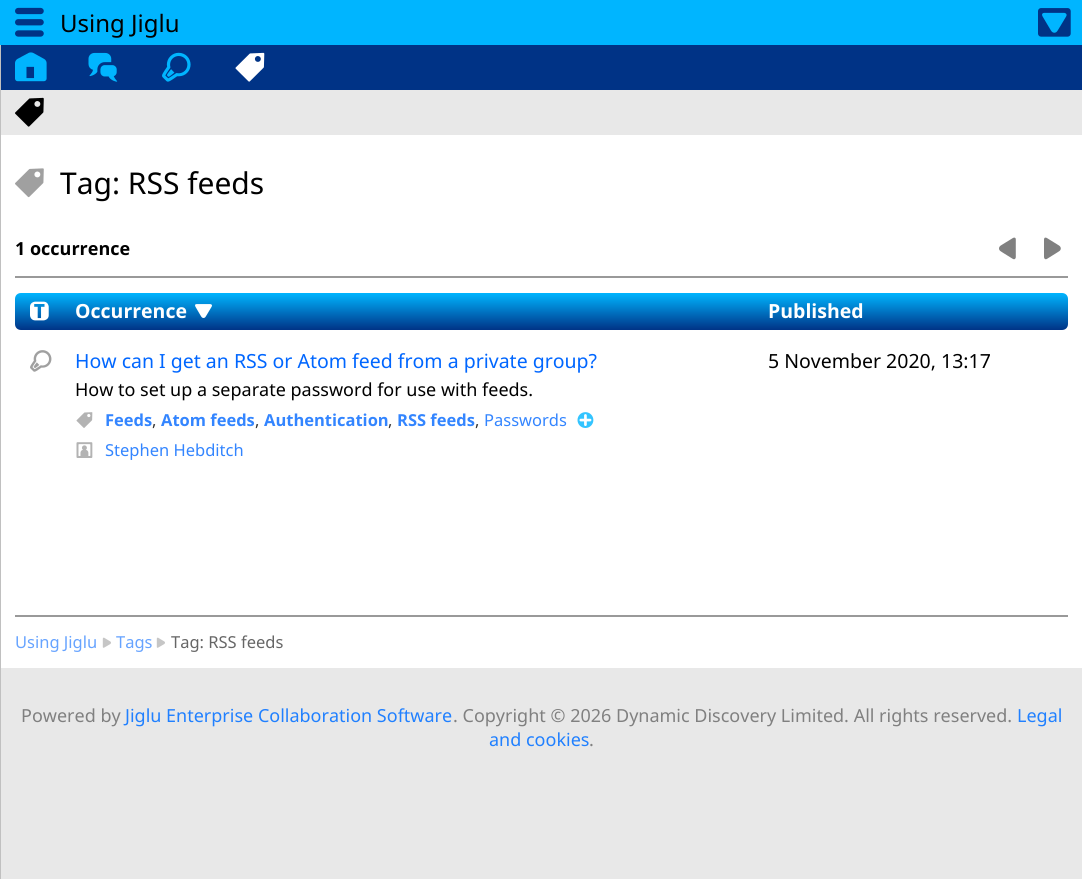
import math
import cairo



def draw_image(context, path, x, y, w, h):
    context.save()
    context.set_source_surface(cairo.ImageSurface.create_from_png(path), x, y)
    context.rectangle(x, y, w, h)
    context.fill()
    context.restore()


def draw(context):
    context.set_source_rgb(232 / 255, 232 / 255, 232 / 255)
    context.paint()
    context.set_source_rgb(0, 181 / 255, 1)
    context.rectangle(0, 0, 1082, 45)
    context.fill()
    draw_image(context, "images/1.png", 15, 7, 29, 30)
    draw_image(context, "images/2.png", 1038, 8, 33, 29)
    context.set_source_rgb(0, 51 / 255, 134 / 255)
    context.rectangle(1, 45, 1081, 45)
    context.fill()
    draw_image(context, "images/3.png", 15, 52, 32, 30)
    draw_image(context, "images/4.png", 88, 52, 30, 30)
    draw_image(context, "images/5.png", 162, 52, 29, 30)
    draw_image(context, "images/6.png", 235, 52, 30, 30)
    draw_image(context, "images/7.png", 15, 97, 29, 30)
    context.set_source_rgb(192 / 255, 192 / 255, 192 / 255)
    context.rectangle(0, 45, 1, 834)
    context.fill()
    context.set_source_rgb(1, 1, 1)
    context.rectangle(1, 135, 1081, 533)
    context.fill()
    draw_image(context, "images/8.png", 15, 168, 29, 30)
    context.set_source_rgb(153 / 255, 153 / 255, 153 / 255)
    context.rectangle(15, 276, 1053, 2)
    context.fill()
    draw_image(context, "images/9.png", 999, 237, 17, 23)
    draw_image(context, "images/10.png", 1044, 237, 17, 23)
    gradient = cairo.LinearGradient(38, 330, 38, 293)
    gradient.add_color_stop_rgba(0, 0, 51 / 255, 134 / 255, 1)
    gradient.add_color_stop_rgba(1, 0, 181 / 255, 1, 1)
    context.set_source(gradient)
    context.new_path()
    context.move_to(21, 293)
    context.line_to(60, 293)
    context.line_to(60, 330)
    context.line_to(21, 330)
    context.curve_to(17.5, 330, 15, 327.5, 15, 324)
    context.line_to(15, 299)
    context.curve_to(15, 295.5, 17.5, 293, 21, 293)
    context.close_path()
    context.fill()
    draw_image(context, "images/11.png", 30, 301, 19, 20)
    gradient = cairo.LinearGradient(407, 330, 407, 293)
    gradient.add_color_stop_rgba(0, 0, 51 / 255, 134 / 255, 1)
    gradient.add_color_stop_rgba(1, 0, 181 / 255, 1, 1)
    context.set_source(gradient)
    context.rectangle(60, 293, 693, 37)
    context.fill()
    draw_image(context, "images/12.png", 195, 304, 17, 14)
    gradient = cairo.LinearGradient(911, 330, 911, 293)
    gradient.add_color_stop_rgba(0, 0, 51 / 255, 134 / 255, 1)
    gradient.add_color_stop_rgba(1, 0, 181 / 255, 1, 1)
    context.set_source(gradient)
    context.new_path()
    context.move_to(753, 293)
    context.line_to(1062, 293)
    context.curve_to(1065.5, 293, 1068, 295.5, 1068, 299)
    context.line_to(1068, 324)
    context.curve_to(1068, 327.5, 1065.5, 330, 1062, 330)
    context.line_to(753, 330)
    context.close_path()
    context.fill()
    draw_image(context, "images/13.png", 30, 350, 22, 22)
    draw_image(context, "images/14.png", 76, 412, 17, 16)
    draw_image(context, "images/15.png", 577, 412, 17, 16)
    draw_image(context, "images/16.png", 76, 442, 17, 16)
    context.set_source_rgb(153 / 255, 153 / 255, 153 / 255)
    context.rectangle(15, 615, 1053, 2)
    context.fill()
    draw_image(context, "images/17.png", 102, 637, 9, 11)
    draw_image(context, "images/17.png", 156, 637, 9, 11)
    context.select_font_face("Noto Sans")
    context.set_font_size(24)
    context.set_source_rgb(0, 0, 0)
    context.move_to(60, 32)
    context.show_text("Using Jiglu")
    context.set_font_size(30)
    context.move_to(60, 194)
    context.show_text("Tag: RSS feeds")
    context.select_font_face("Noto Sans", cairo.FontSlant.NORMAL, cairo.FontWeight.BOLD)
    context.set_font_size(18)
    context.move_to(15, 255)
    context.show_text("1 occurrence")
    context.set_font_size(19.5)
    context.set_source_rgb(1, 1, 1)
    context.move_to(75, 318)
    context.show_text("Occurrence")
    context.move_to(768, 318)
    context.show_text("Published")
    context.select_font_face("Noto Sans")
    context.set_source_rgb(0, 102 / 255, 1)
    context.move_to(75, 368)
    context.show_text("How can I get an RSS or Atom feed from a private group?")
    context.set_font_size(18)
    context.set_source_rgb(0, 0, 0)
    context.move_to(75, 396)
    context.show_text("How to set up a separate password for use with feeds.")
    context.select_font_face("Noto Sans", cairo.FontSlant.NORMAL, cairo.FontWeight.BOLD)
    context.set_font_size(16.5)
    context.set_source_rgb(51 / 255, 133 / 255, 1)
    context.move_to(105, 426)
    context.show_text("Feeds")
    context.select_font_face("Noto Sans")
    context.set_source_rgb(51 / 255, 51 / 255, 51 / 255)
    context.move_to(152, 426)
    context.show_text(",")
    context.select_font_face("Noto Sans", cairo.FontSlant.NORMAL, cairo.FontWeight.BOLD)
    context.set_source_rgb(51 / 255, 133 / 255, 1)
    context.move_to(161, 426)
    context.show_text("Atom feeds")
    context.select_font_face("Noto Sans")
    context.set_source_rgb(51 / 255, 51 / 255, 51 / 255)
    context.move_to(255, 426)
    context.show_text(",")
    context.select_font_face("Noto Sans", cairo.FontSlant.NORMAL, cairo.FontWeight.BOLD)
    context.set_source_rgb(51 / 255, 133 / 255, 1)
    context.move_to(264, 426)
    context.show_text("Authentication")
    context.select_font_face("Noto Sans")
    context.set_source_rgb(51 / 255, 51 / 255, 51 / 255)
    context.move_to(388, 426)
    context.show_text(",")
    context.select_font_face("Noto Sans", cairo.FontSlant.NORMAL, cairo.FontWeight.BOLD)
    context.set_source_rgb(51 / 255, 133 / 255, 1)
    context.move_to(397, 426)
    context.show_text("RSS feeds")
    context.select_font_face("Noto Sans")
    context.set_source_rgb(51 / 255, 51 / 255, 51 / 255)
    context.move_to(475, 426)
    context.show_text(",")
    context.set_source_rgb(51 / 255, 133 / 255, 1)
    context.move_to(484, 426)
    context.show_text("Passwords")
    context.move_to(105, 456)
    context.show_text("Stephen Hebditch")
    context.set_font_size(19.5)
    context.set_source_rgb(0, 0, 0)
    context.move_to(768, 368)
    context.show_text("5 November 2020, 13:17")
    context.set_font_size(16.5)
    context.set_source_rgb(102 / 255, 163 / 255, 1)
    context.move_to(15, 648)
    context.show_text("Using Jiglu")
    context.move_to(116, 648)
    context.show_text("Tags")
    context.set_source_rgb(102 / 255, 102 / 255, 102 / 255)
    context.move_to(171, 648)
    context.show_text("Tag: RSS feeds")
    context.set_font_size(18)
    context.set_source_rgb(128 / 255, 128 / 255, 128 / 255)
    context.move_to(21, 722)
    context.show_text("Powered by")
    context.set_source_rgb(32 / 255, 128 / 255, 1)
    context.move_to(125, 722)
    context.show_text("Jiglu Enterprise Collaboration Software")
    context.set_source_rgb(128 / 255, 128 / 255, 128 / 255)
    context.move_to(453, 722)
    context.show_text(". Copyright © 2026 Dynamic Discovery Limited. All rights reserved.")
    context.set_source_rgb(32 / 255, 128 / 255, 1)
    context.move_to(1017, 722)
    context.show_text("Legal")
    context.move_to(489, 746)
    context.show_text("and cookies")
    context.set_source_rgb(128 / 255, 128 / 255, 128 / 255)
    context.move_to(589, 746)
    context.show_text(".")


surface = cairo.ImageSurface(cairo.Format.RGB24, 1082, 879)
context = cairo.Context(surface)
options = cairo.FontOptions()
options.set_hint_metrics(cairo.HintMetrics.OFF)
options.set_hint_style(cairo.HintStyle.NONE)
context.set_font_options(options)
context.set_miter_limit(4)
draw(context)
surface.write_to_png("out.png")
